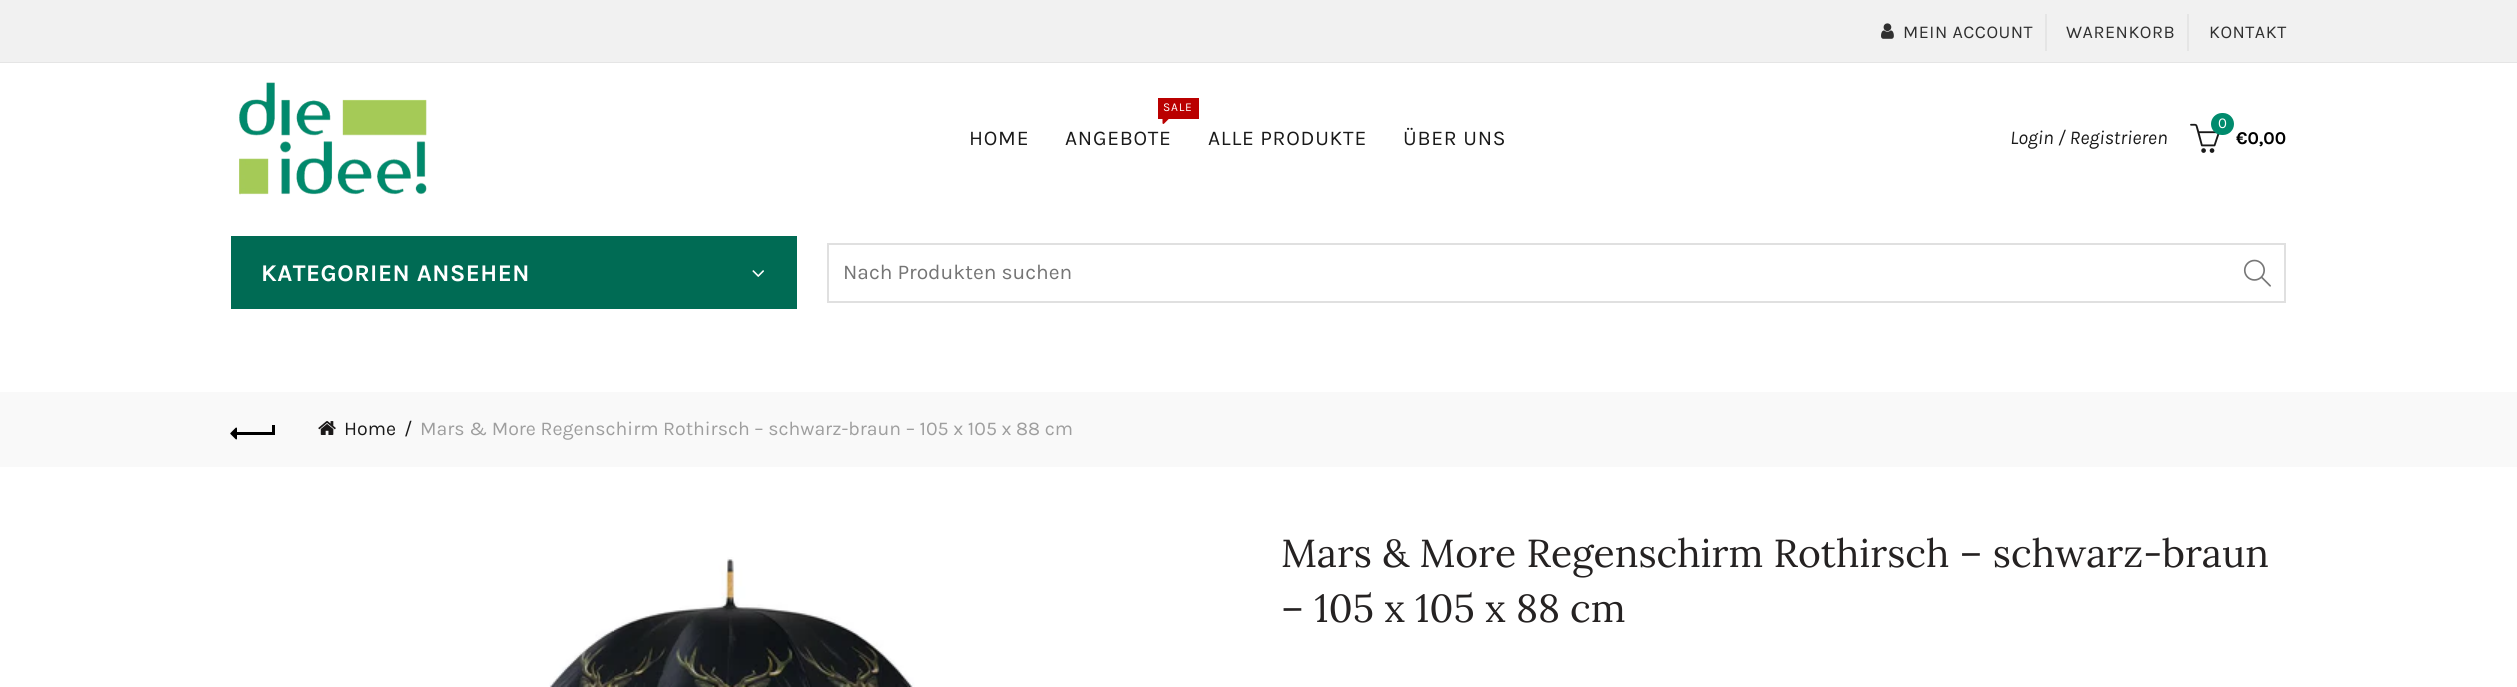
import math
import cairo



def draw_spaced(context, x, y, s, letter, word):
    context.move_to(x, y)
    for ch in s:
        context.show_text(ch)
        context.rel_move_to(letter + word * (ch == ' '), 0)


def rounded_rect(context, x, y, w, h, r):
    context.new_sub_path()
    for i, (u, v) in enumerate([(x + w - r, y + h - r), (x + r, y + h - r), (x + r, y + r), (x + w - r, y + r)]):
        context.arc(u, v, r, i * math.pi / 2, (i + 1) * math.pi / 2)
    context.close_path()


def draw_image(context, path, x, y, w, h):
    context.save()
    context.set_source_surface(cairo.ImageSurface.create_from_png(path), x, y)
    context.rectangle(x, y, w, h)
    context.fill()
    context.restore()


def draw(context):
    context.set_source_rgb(1, 1, 1)
    context.paint()
    context.set_source_rgb(241 / 255, 241 / 255, 241 / 255)
    context.rectangle(0, 0, 2517, 62)
    context.fill()
    context.set_source_rgb(229 / 255, 229 / 255, 229 / 255)
    context.rectangle(0, 62, 2517, 1)
    context.fill()
    draw_image(context, "images/1.png", 1881, 23, 13, 16)
    context.rectangle(2045, 14, 2, 37)
    context.fill()
    context.rectangle(2187, 14, 2, 37)
    context.fill()
    draw_image(context, "images/2.png", 239, 82, 188, 113)
    context.set_source_rgb(186 / 255, 0, 0)
    context.rectangle(1158, 98, 41, 21)
    context.fill()
    draw_image(context, "images/3.png", 1162, 119, 7, 5)
    draw_image(context, "images/4.png", 2190, 123, 30, 30)
    context.set_source_rgb(0, 139 / 255, 109 / 255)
    rounded_rect(context, 2211, 113, 23, 22, 11)
    context.fill()
    context.set_source_rgb(0, 107 / 255, 84 / 255)
    context.rectangle(231, 236, 566, 73)
    context.fill()
    draw_image(context, "images/5.png", 752, 270, 12, 7)
    context.rectangle(828, 244, 1457, 58)
    context.set_source_rgb(224 / 255, 224 / 255, 224 / 255)
    context.stroke()
    draw_image(context, "images/6.png", 2243, 259, 28, 28)
    context.set_source_rgb(249 / 255, 249 / 255, 249 / 255)
    context.rectangle(0, 392, 2517, 75)
    context.fill()
    context.set_source_rgb(0, 0, 0)
    context.rectangle(236, 432, 37, 3)
    context.fill()
    draw_image(context, "images/7.png", 230, 427, 7, 13)
    context.rectangle(272, 425, 3, 10)
    context.fill()
    draw_image(context, "images/8.png", 318, 421, 18, 14)
    draw_image(context, "images/9.png", 549, 557, 366, 130)
    context.select_font_face("Karla")
    context.set_font_size(18)
    context.set_source_rgb(48 / 255, 48 / 255, 48 / 255)
    draw_spaced(context, 1903, 38, "MEIN ACCOUNT", 0.5, 0)
    draw_spaced(context, 2066, 38, "WARENKORB", 0.5, 0)
    draw_spaced(context, 2209, 38, "KONTAKT", 0.5, 0)
    context.set_font_size(21)
    context.set_source_rgb(26 / 255, 26 / 255, 26 / 255)
    draw_spaced(context, 969, 145, "HOME", 0.75, 0)
    context.set_font_size(12)
    context.set_source_rgb(1, 1, 1)
    draw_spaced(context, 1163, 111, "SALE", 0.75, 0)
    context.set_font_size(21)
    context.set_source_rgb(26 / 255, 26 / 255, 26 / 255)
    draw_spaced(context, 1065, 145, "ANGEBOTE", 0.75, 0)
    draw_spaced(context, 1208, 145, "ALLE PRODUKTE", 0.75, 0)
    draw_spaced(context, 1403, 145, "ÜBER UNS", 0.75, 0)
    context.select_font_face("Karla", cairo.FontSlant.ITALIC)
    context.set_font_size(19.5)
    context.move_to(2010, 144)
    context.show_text("Login / Registrieren")
    context.select_font_face("Karla")
    context.set_font_size(15)
    context.set_source_rgb(1, 1, 1)
    context.move_to(2218, 128)
    context.show_text("0")
    context.select_font_face("Karla", cairo.FontSlant.NORMAL, cairo.FontWeight.BOLD)
    context.set_font_size(18)
    context.set_source_rgb(0, 0, 0)
    context.move_to(2236, 144)
    context.show_text("€0,00")
    context.set_font_size(24)
    context.set_source_rgb(1, 1, 1)
    draw_spaced(context, 261, 281, "KATEGORIEN ANSEHEN", 0.5, 0)
    context.select_font_face("Karla")
    context.set_font_size(21)
    context.set_source_rgb(117 / 255, 117 / 255, 117 / 255)
    context.move_to(843, 279)
    context.show_text("Nach Produkten suchen")
    context.set_font_size(19.5)
    context.set_source_rgb(26 / 255, 26 / 255, 26 / 255)
    context.move_to(344, 435)
    context.show_text("Home")
    context.move_to(404, 435)
    context.show_text("/")
    context.set_source_rgb(158 / 255, 158 / 255, 158 / 255)
    context.move_to(420, 435)
    context.show_text("Mars & More Regenschirm Rothirsch – schwarz-braun – 105 x 105 x 88 cm")
    context.select_font_face("Lora")
    context.set_font_size(39)
    context.set_source_rgb(37 / 255, 34 / 255, 34 / 255)
    context.move_to(1281, 567)
    context.show_text("Mars & More Regenschirm Rothirsch – schwarz-braun")
    context.move_to(1281, 622)
    context.show_text("– 105 x 105 x 88 cm")


surface = cairo.ImageSurface(cairo.Format.RGB24, 2517, 687)
context = cairo.Context(surface)
options = cairo.FontOptions()
options.set_hint_metrics(cairo.HintMetrics.OFF)
options.set_hint_style(cairo.HintStyle.NONE)
context.set_font_options(options)
context.set_miter_limit(4)
draw(context)
surface.write_to_png("out.png")
